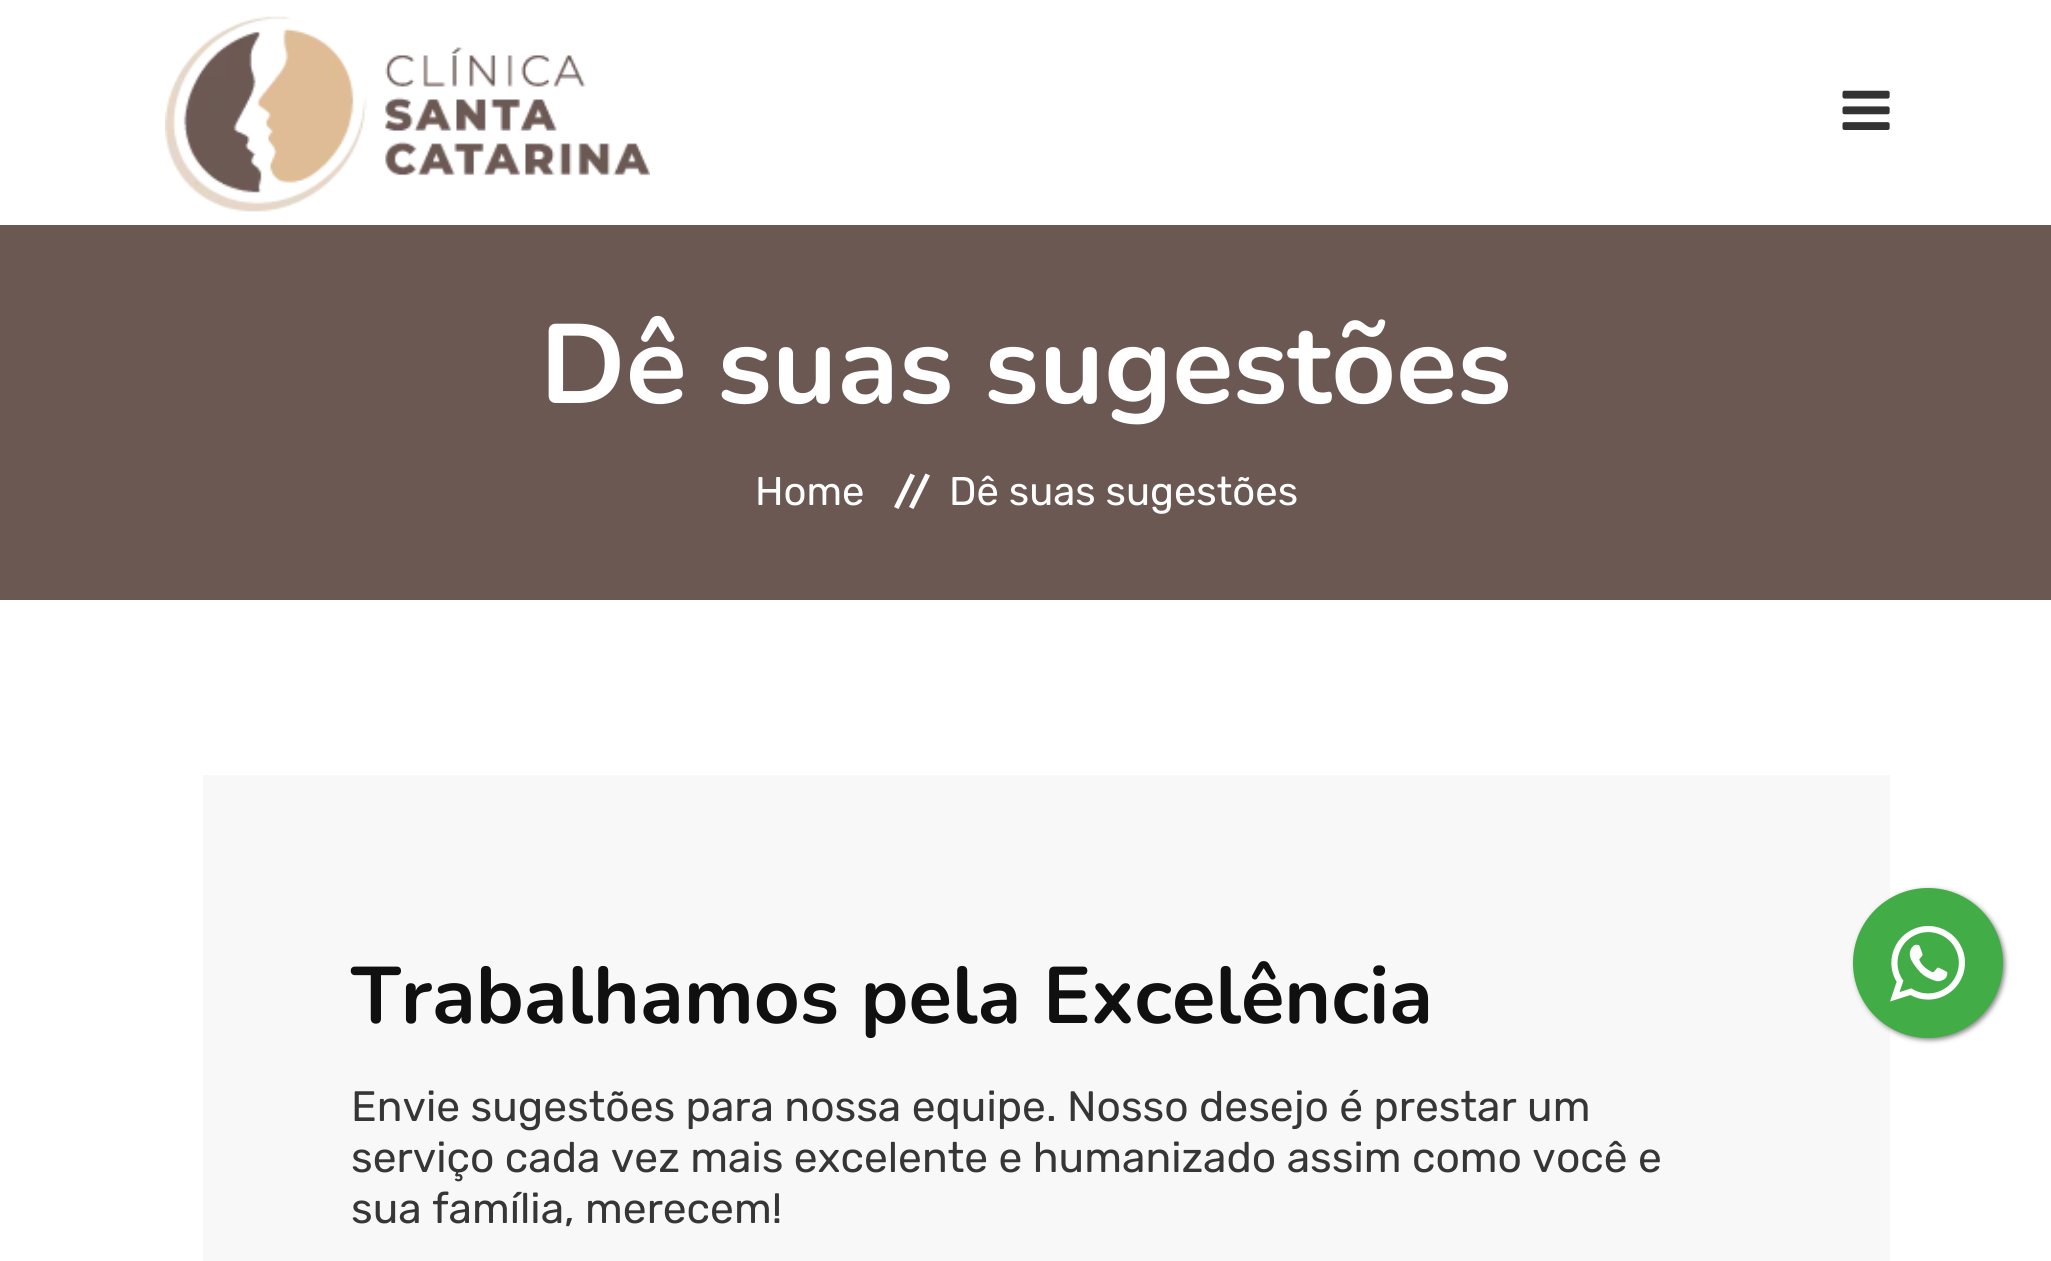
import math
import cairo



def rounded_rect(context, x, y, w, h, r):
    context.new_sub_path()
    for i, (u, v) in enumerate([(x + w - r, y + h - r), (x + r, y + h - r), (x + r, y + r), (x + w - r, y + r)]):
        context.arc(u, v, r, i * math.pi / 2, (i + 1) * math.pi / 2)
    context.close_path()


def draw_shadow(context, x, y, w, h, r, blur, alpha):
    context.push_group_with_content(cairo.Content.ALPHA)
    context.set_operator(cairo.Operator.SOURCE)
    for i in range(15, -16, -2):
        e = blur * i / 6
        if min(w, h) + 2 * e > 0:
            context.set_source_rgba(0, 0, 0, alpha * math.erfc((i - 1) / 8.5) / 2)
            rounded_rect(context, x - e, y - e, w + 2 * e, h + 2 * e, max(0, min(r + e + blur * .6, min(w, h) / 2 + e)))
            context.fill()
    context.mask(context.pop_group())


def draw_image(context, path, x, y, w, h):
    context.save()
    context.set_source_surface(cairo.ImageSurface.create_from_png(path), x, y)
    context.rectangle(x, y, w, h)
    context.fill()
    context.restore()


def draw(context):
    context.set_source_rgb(1, 1, 1)
    context.paint()
    draw_image(context, "images/1.png", 165, 16, 485, 196)
    draw_image(context, "images/2.png", 1842, 90, 48, 40)
    context.set_source_rgb(107 / 255, 88 / 255, 82 / 255)
    context.rectangle(0, 225, 2051, 375)
    context.fill()
    context.set_source_rgb(1, 1, 1)
    context.new_path()
    context.move_to(910.5, 473.5)
    context.line_to(915, 475.5)
    context.line_to(898.5, 509)
    context.line_to(894, 507)
    context.close_path()
    context.fill()
    context.new_path()
    context.move_to(925.5, 473.5)
    context.line_to(930, 475.5)
    context.line_to(913.5, 509)
    context.line_to(909, 507)
    context.close_path()
    context.fill()
    context.set_source_rgb(249 / 255, 248 / 255, 248 / 255)
    context.rectangle(203, 775, 1687, 486)
    context.fill()
    context.set_source_rgb(136 / 255, 136 / 255, 136 / 255)
    draw_shadow(context, 1855, 890, 150, 150, 75, 2.5, 1)
    context.set_source_rgb(66 / 255, 172 / 255, 70 / 255)
    context.arc(1928, 963, 75, 0, 2 * math.pi)
    context.fill()
    draw_image(context, "images/3.png", 1890, 925, 75, 77)
    context.select_font_face("Nunito", cairo.FontSlant.NORMAL, cairo.FontWeight.BOLD)
    context.set_font_size(112.5)
    context.set_source_rgb(1, 1, 1)
    context.move_to(540, 403)
    context.show_text("Dê suas sugestões")
    context.select_font_face("Rubik")
    context.set_font_size(40)
    context.move_to(755, 505)
    context.show_text("Home")
    context.move_to(949, 505)
    context.show_text("Dê suas sugestões")
    context.select_font_face("Nunito", cairo.FontSlant.NORMAL, cairo.FontWeight.BOLD)
    context.set_font_size(80)
    context.set_source_rgb(16 / 255, 16 / 255, 16 / 255)
    context.move_to(351, 1023)
    context.show_text("Trabalhamos pela Excelência")
    context.select_font_face("Rubik")
    context.set_font_size(42.5)
    context.set_source_rgb(54 / 255, 54 / 255, 54 / 255)
    context.move_to(351, 1121)
    context.show_text("Envie sugestões para nossa equipe. Nosso desejo é prestar um")
    context.move_to(351, 1172)
    context.show_text("serviço cada vez mais excelente e humanizado assim como você e")
    context.move_to(351, 1223)
    context.show_text("sua família, merecem!")


surface = cairo.ImageSurface(cairo.Format.RGB24, 2051, 1261)
context = cairo.Context(surface)
options = cairo.FontOptions()
options.set_hint_metrics(cairo.HintMetrics.OFF)
options.set_hint_style(cairo.HintStyle.NONE)
context.set_font_options(options)
context.set_miter_limit(4)
draw(context)
surface.write_to_png("out.png")
